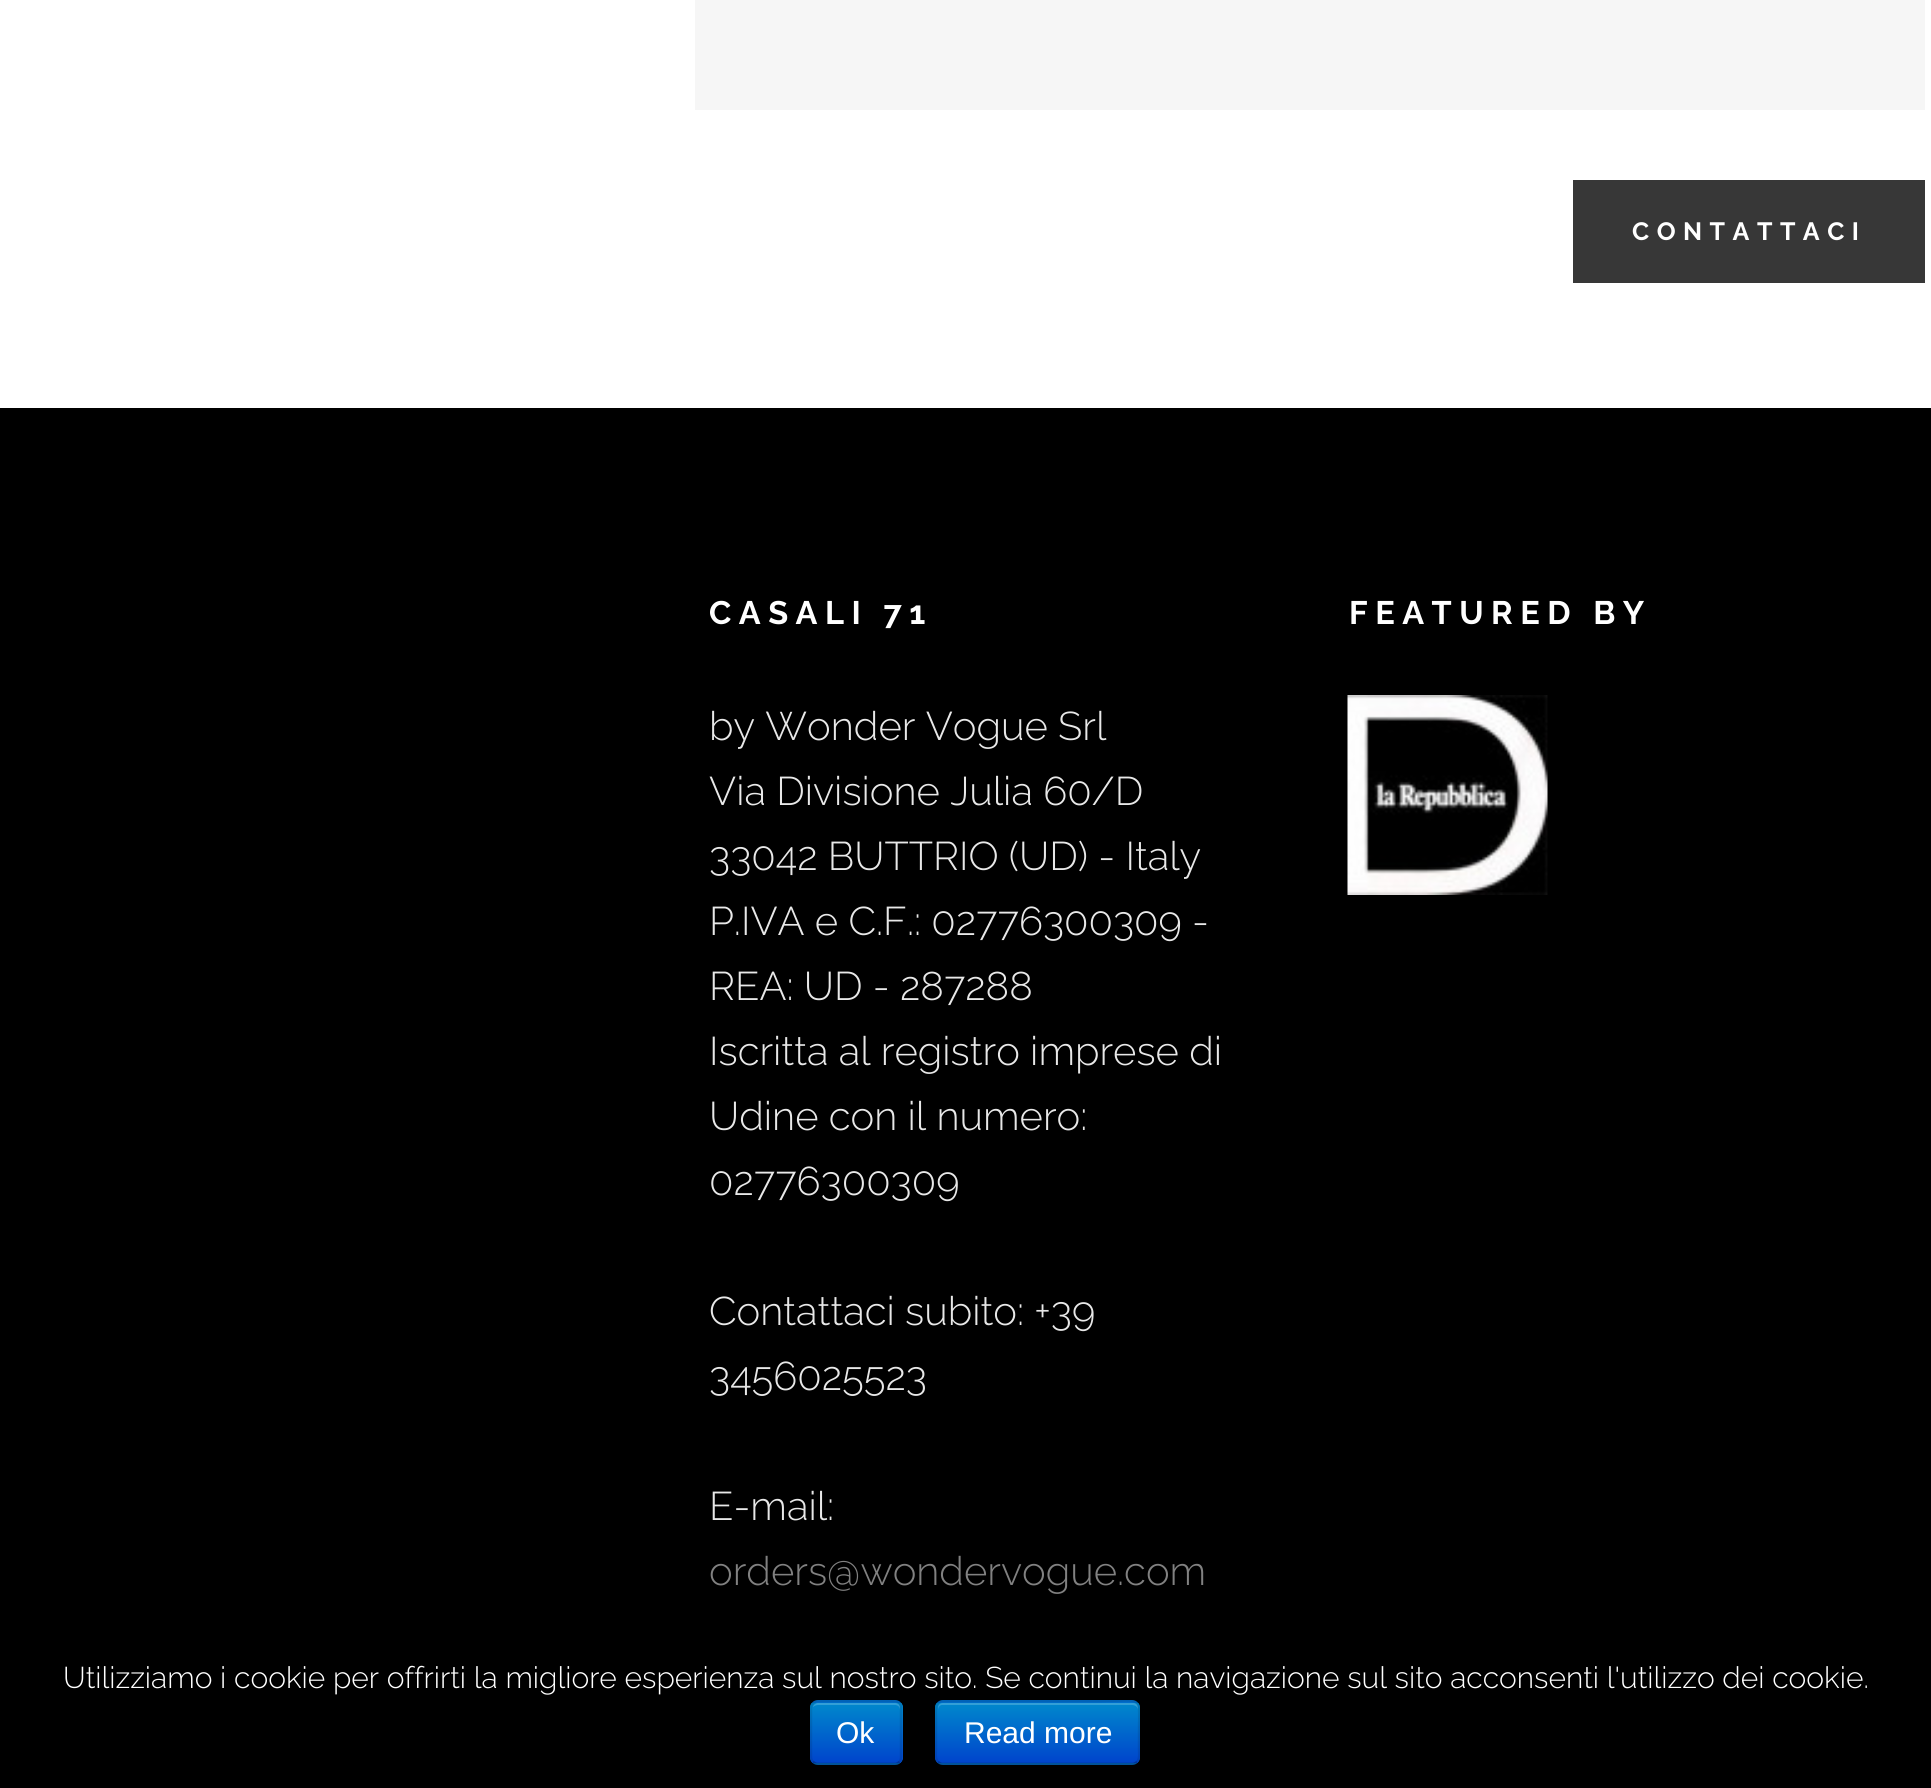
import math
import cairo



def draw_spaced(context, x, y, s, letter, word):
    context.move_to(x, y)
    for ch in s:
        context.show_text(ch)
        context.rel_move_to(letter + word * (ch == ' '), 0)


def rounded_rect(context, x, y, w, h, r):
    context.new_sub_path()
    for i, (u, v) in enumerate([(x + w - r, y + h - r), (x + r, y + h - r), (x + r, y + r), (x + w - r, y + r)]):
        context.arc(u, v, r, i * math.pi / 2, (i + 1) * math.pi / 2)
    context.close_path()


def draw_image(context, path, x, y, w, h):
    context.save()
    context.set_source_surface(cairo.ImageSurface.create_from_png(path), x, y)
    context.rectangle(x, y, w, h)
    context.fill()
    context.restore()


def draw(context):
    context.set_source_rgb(1, 1, 1)
    context.paint()
    context.set_source_rgb(246 / 255, 246 / 255, 246 / 255)
    context.rectangle(695, 0, 1230, 110)
    context.fill()
    context.set_source_rgb(55 / 255, 55 / 255, 55 / 255)
    context.rectangle(1573, 180, 352, 103)
    context.fill()
    context.set_source_rgb(0, 0, 0)
    context.rectangle(0, 408, 1931, 1380)
    context.fill()
    draw_image(context, "images/1.png", 1347, 695, 201, 200)
    context.set_source_rgb(0, 109 / 255, 204 / 255)
    rounded_rect(context, 810, 1700, 93, 65, 8)
    context.fill()
    context.save()
    rounded_rect(context, 810, 1700, 93, 65, 8)
    context.clip()
    gradient = cairo.LinearGradient(856, 1703, 856, 1763)
    gradient.add_color_stop_rgba(0, 0, 136 / 255, 204 / 255, 1)
    gradient.add_color_stop_rgba(1, 0, 68 / 255, 204 / 255, 1)
    context.set_source(gradient)
    context.rectangle(810, 1703, 93, 60)
    context.fill()
    context.restore()
    context.set_source_rgba(1, 1, 1, 0.2)
    context.new_path()
    context.move_to(818, 1705)
    context.line_to(895, 1705)
    context.curve_to(898, 1705, 900, 1707, 900, 1710)
    context.line_to(900, 1708)
    context.curve_to(900, 1705, 898, 1703, 895, 1703)
    context.line_to(818, 1703)
    context.curve_to(816, 1703, 813, 1705, 813, 1707)
    context.curve_to(814, 1706, 816, 1705, 818, 1705)
    context.close_path()
    context.fill()
    context.new_path()
    context.move_to(899.5, 1762)
    context.curve_to(898, 1763, 896.5, 1764, 895, 1764)
    context.line_to(817.5, 1764)
    context.curve_to(816, 1764, 814.5, 1763, 813, 1762)
    context.set_source_rgba(0, 0, 0, 0.25)
    context.set_line_width(2.5)
    context.stroke()
    context.new_path()
    context.move_to(813, 1762)
    context.curve_to(812, 1760.5, 811, 1759, 811, 1757.5)
    context.line_to(811, 1707.5)
    context.curve_to(811, 1706, 812, 1704.5, 813, 1703)
    context.curve_to(814.5, 1702, 816, 1701, 817.5, 1701)
    context.line_to(895, 1701)
    context.curve_to(896.5, 1701, 898, 1702, 899.5, 1703)
    context.curve_to(900.5, 1704.5, 901, 1706, 901, 1707.5)
    context.line_to(901, 1757.5)
    context.curve_to(901, 1759, 900.5, 1760.5, 899.5, 1762)
    context.set_source_rgba(0, 0, 0, 0.1)
    context.stroke()
    context.set_source_rgb(0, 109 / 255, 204 / 255)
    rounded_rect(context, 935, 1700, 205, 65, 8)
    context.fill()
    context.save()
    rounded_rect(context, 935, 1700, 205, 65, 8)
    context.clip()
    gradient = cairo.LinearGradient(1038, 1703, 1038, 1763)
    gradient.add_color_stop_rgba(0, 0, 136 / 255, 204 / 255, 1)
    gradient.add_color_stop_rgba(1, 0, 68 / 255, 204 / 255, 1)
    context.set_source(gradient)
    context.rectangle(935, 1703, 205, 60)
    context.fill()
    context.restore()
    context.set_source_rgba(1, 1, 1, 0.2)
    context.new_path()
    context.move_to(942, 1705)
    context.line_to(1132, 1705)
    context.curve_to(1135, 1705, 1138, 1707, 1138, 1710)
    context.line_to(1138, 1708)
    context.curve_to(1138, 1705, 1136, 1703, 1133, 1703)
    context.line_to(943, 1703)
    context.curve_to(940, 1703, 938, 1705, 938, 1708)
    context.line_to(938, 1710)
    context.curve_to(938, 1707, 940, 1705, 942, 1705)
    context.close_path()
    context.fill()
    context.new_path()
    context.move_to(1137, 1762)
    context.curve_to(1135.5, 1763, 1134, 1764, 1132.5, 1764)
    context.line_to(942.5, 1764)
    context.curve_to(941, 1764, 939.5, 1763, 938, 1762)
    context.set_source_rgba(0, 0, 0, 0.25)
    context.stroke()
    context.new_path()
    context.move_to(938, 1762)
    context.curve_to(935, 1759, 936, 1752.5, 936, 1749)
    context.line_to(936, 1716)
    context.curve_to(936, 1711, 934.5, 1701.5, 942.5, 1701)
    context.line_to(1101, 1701)
    context.curve_to(1144, 1701, 1139, 1693.5, 1139, 1732.5)
    context.line_to(1139, 1749)
    context.curve_to(1139, 1752.5, 1140, 1759, 1137, 1762)
    context.set_source_rgba(0, 0, 0, 0.1)
    context.stroke()
    context.select_font_face("Raleway", cairo.FontSlant.NORMAL, cairo.FontWeight.BOLD)
    context.set_font_size(25)
    context.set_source_rgb(1, 1, 1)
    draw_spaced(context, 1632, 240, "CONTATTACI", 7.5, 0)
    context.set_font_size(32.5)
    draw_spaced(context, 709, 624, "CASALI 71", 7.5, 0)
    context.select_font_face("Raleway Light")
    context.set_font_size(40)
    context.set_source_rgb(232 / 255, 232 / 255, 232 / 255)
    context.move_to(709, 740)
    context.show_text("by Wonder Vogue Srl")
    context.move_to(709, 805)
    context.show_text("Via Divisione Julia 60/D")
    context.move_to(709, 870)
    context.show_text("33042 BUTTRIO (UD) - Italy")
    context.move_to(709, 935)
    context.show_text("P.IVA e C.F.: 02776300309 -")
    context.move_to(709, 1000)
    context.show_text("REA: UD - 287288")
    context.move_to(709, 1065)
    context.show_text("Iscritta al registro imprese di")
    context.move_to(709, 1130)
    context.show_text("Udine con il numero:")
    context.move_to(709, 1195)
    context.show_text("02776300309")
    context.move_to(709, 1325)
    context.show_text("Contattaci subito: +39")
    context.move_to(709, 1390)
    context.show_text("3456025523")
    context.move_to(709, 1520)
    context.show_text("E-mail:")
    context.set_source_rgb(129 / 255, 129 / 255, 129 / 255)
    context.move_to(709, 1585)
    context.show_text("orders@wondervogue.com")
    context.select_font_face("Raleway", cairo.FontSlant.NORMAL, cairo.FontWeight.BOLD)
    context.set_font_size(32.5)
    context.set_source_rgb(1, 1, 1)
    draw_spaced(context, 1349, 624, "FEATURED BY", 7.5, 0)
    context.select_font_face("Raleway Light")
    context.set_font_size(30)
    context.move_to(63, 1688)
    context.show_text("Utilizziamo i cookie per offrirti la migliore esperienza sul nostro sito. Se continui la navigazione sul sito acconsenti l'utilizzo dei cookie.")
    context.select_font_face("Liberation Sans")
    context.move_to(836, 1743)
    context.show_text("Ok")
    context.move_to(964, 1743)
    context.show_text("Read more")


surface = cairo.ImageSurface(cairo.Format.RGB24, 1931, 1788)
context = cairo.Context(surface)
options = cairo.FontOptions()
options.set_hint_metrics(cairo.HintMetrics.OFF)
options.set_hint_style(cairo.HintStyle.NONE)
context.set_font_options(options)
context.set_miter_limit(4)
draw(context)
surface.write_to_png("out.png")
